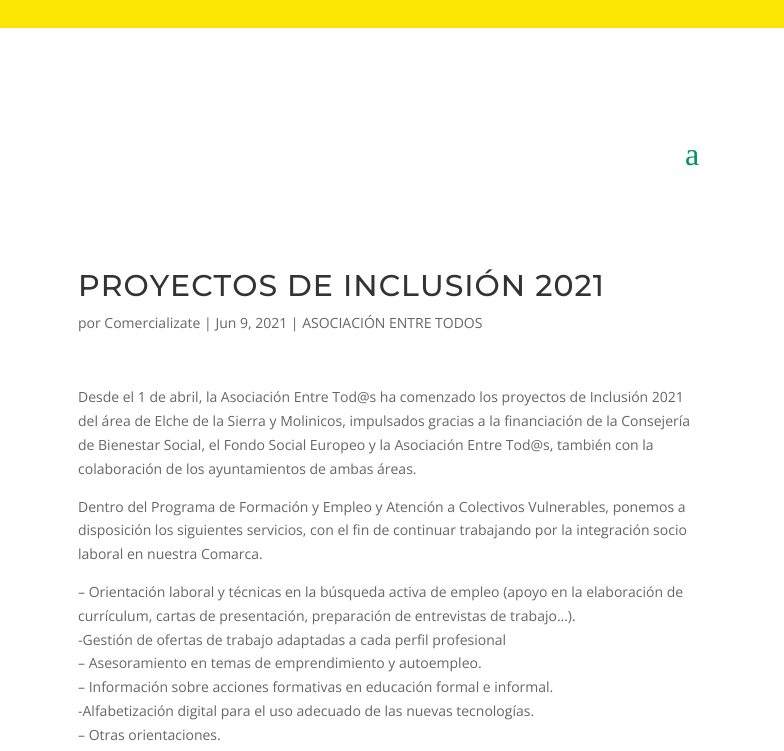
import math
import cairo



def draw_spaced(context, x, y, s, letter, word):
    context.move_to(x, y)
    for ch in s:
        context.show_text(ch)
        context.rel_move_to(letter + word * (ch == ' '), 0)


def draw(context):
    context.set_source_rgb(1, 1, 1)
    context.paint()
    context.set_source_rgb(251 / 255, 229 / 255, 2 / 255)
    context.rectangle(0, 0, 784, 28)
    context.fill()
    context.select_font_face("Liberation Serif")
    context.set_font_size(32)
    context.set_source_rgb(0, 147 / 255, 103 / 255)
    context.move_to(685, 165)
    context.show_text("a")
    context.select_font_face("Montserrat Thin")
    context.set_font_size(30)
    context.set_source_rgb(51 / 255, 51 / 255, 51 / 255)
    draw_spaced(context, 78, 296, "PROYECTOS DE INCLUSIÓN 2021", 1, 0)
    context.select_font_face("Open Sans")
    context.set_font_size(14)
    context.set_source_rgb(102 / 255, 102 / 255, 102 / 255)
    context.move_to(78, 328)
    context.show_text("por Comercializate | Jun 9, 2021 | ASOCIACIÓN ENTRE TODOS")
    context.move_to(78, 402)
    context.show_text("Desde el 1 de abril, la Asociación Entre Tod@s ha comenzado los proyectos de Inclusión 2021")
    context.move_to(78, 426)
    context.show_text("del área de Elche de la Sierra y Molinicos, impulsados gracias a la financiación de la Consejería")
    context.move_to(78, 450)
    context.show_text("de Bienestar Social, el Fondo Social Europeo y la Asociación Entre Tod@s, también con la")
    context.move_to(78, 474)
    context.show_text("colaboración de los ayuntamientos de ambas áreas.")
    context.move_to(78, 512)
    context.show_text("Dentro del Programa de Formación y Empleo y Atención a Colectivos Vulnerables, ponemos a")
    context.move_to(78, 535)
    context.show_text("disposición los siguientes servicios, con el fin de continuar trabajando por la integración socio")
    context.move_to(78, 559)
    context.show_text("laboral en nuestra Comarca.")
    context.move_to(78, 597)
    context.show_text("– Orientación laboral y técnicas en la búsqueda activa de empleo (apoyo en la elaboración de")
    context.move_to(78, 621)
    context.show_text("currículum, cartas de presentación, preparación de entrevistas de trabajo…).")
    context.move_to(78, 645)
    context.show_text("-Gestión de ofertas de trabajo adaptadas a cada perfil profesional")
    context.move_to(78, 668)
    context.show_text("– Asesoramiento en temas de emprendimiento y autoempleo.")
    context.move_to(78, 692)
    context.show_text("– Información sobre acciones formativas en educación formal e informal.")
    context.move_to(78, 716)
    context.show_text("-Alfabetización digital para el uso adecuado de las nuevas tecnologías.")
    context.move_to(78, 740)
    context.show_text("– Otras orientaciones.")


surface = cairo.ImageSurface(cairo.Format.RGB24, 784, 751)
context = cairo.Context(surface)
options = cairo.FontOptions()
options.set_hint_metrics(cairo.HintMetrics.OFF)
options.set_hint_style(cairo.HintStyle.NONE)
context.set_font_options(options)
context.set_miter_limit(4)
draw(context)
surface.write_to_png("out.png")
